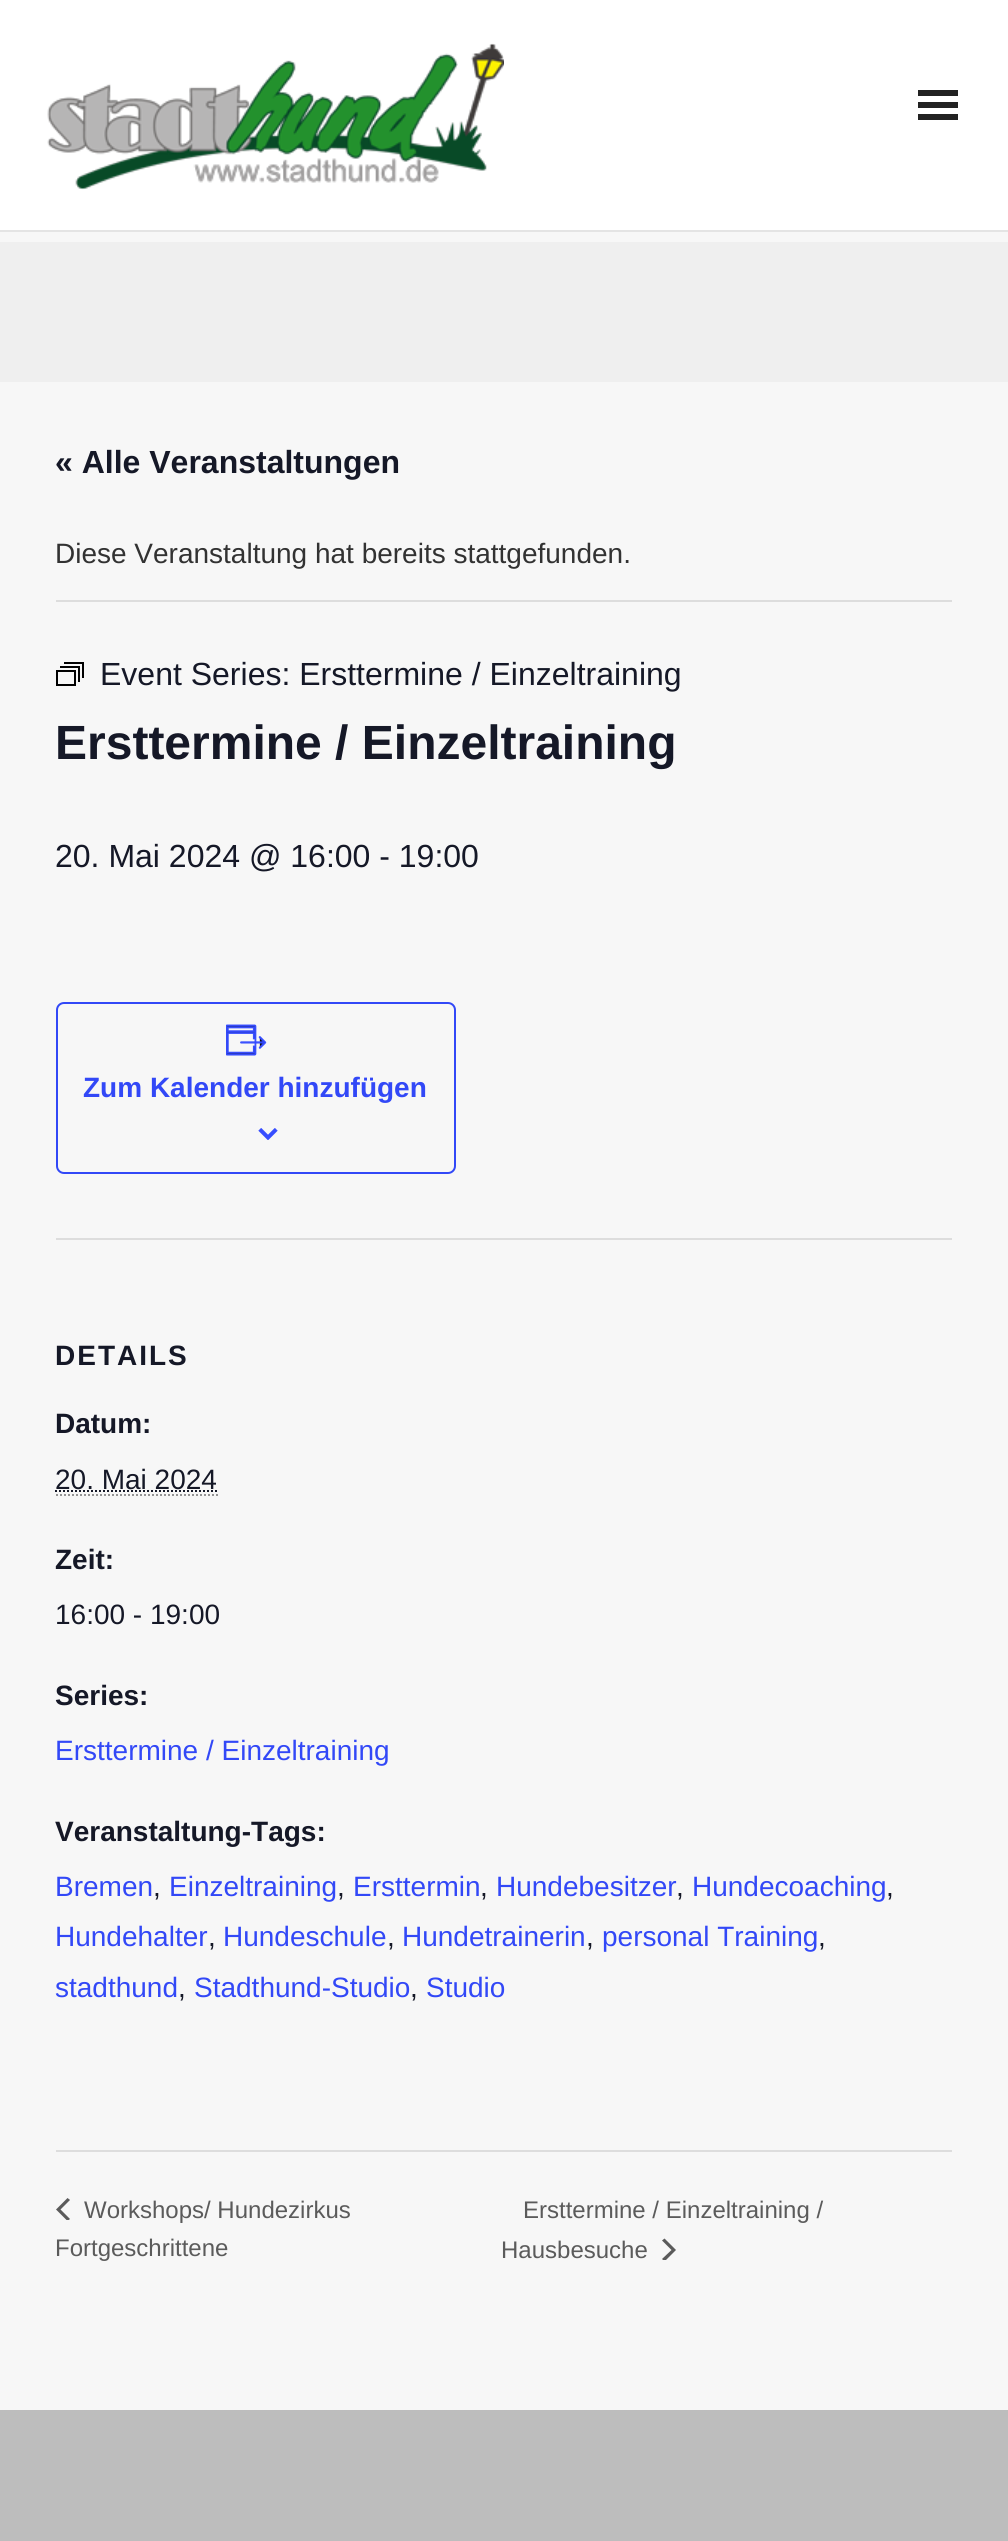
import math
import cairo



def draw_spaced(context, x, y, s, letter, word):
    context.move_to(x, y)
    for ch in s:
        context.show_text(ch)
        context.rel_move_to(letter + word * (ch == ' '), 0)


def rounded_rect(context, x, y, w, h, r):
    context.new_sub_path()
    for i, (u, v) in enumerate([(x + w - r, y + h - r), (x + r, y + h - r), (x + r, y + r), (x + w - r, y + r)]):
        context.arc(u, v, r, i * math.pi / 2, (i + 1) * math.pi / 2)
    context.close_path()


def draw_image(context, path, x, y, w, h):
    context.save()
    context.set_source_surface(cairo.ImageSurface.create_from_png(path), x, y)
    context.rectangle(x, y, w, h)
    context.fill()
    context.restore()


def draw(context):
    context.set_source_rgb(189 / 255, 189 / 255, 189 / 255)
    context.paint()
    context.set_source_rgb(1, 1, 1)
    context.rectangle(0, 0, 1008, 230)
    context.fill()
    context.set_source_rgb(228 / 255, 228 / 255, 228 / 255)
    context.rectangle(0, 230, 1008, 2)
    context.fill()
    draw_image(context, "images/1.png", 47, 43, 457, 147)
    context.set_source_rgb(34 / 255, 34 / 255, 34 / 255)
    context.rectangle(918, 102, 40, 6)
    context.fill()
    context.rectangle(918, 90, 40, 6)
    context.fill()
    context.rectangle(918, 114, 40, 6)
    context.fill()
    context.set_source_rgb(247 / 255, 247 / 255, 247 / 255)
    context.rectangle(0, 232, 1008, 2178)
    context.fill()
    context.set_source_rgb(239 / 255, 239 / 255, 239 / 255)
    context.rectangle(0, 242, 1008, 140)
    context.fill()
    context.set_source_rgb(221 / 255, 221 / 255, 221 / 255)
    context.rectangle(56, 600, 896, 2)
    context.fill()
    context.rectangle(57, 671, 18, 14)
    context.set_source_rgb(1 / 255, 1 / 255, 1 / 255)
    context.stroke()
    context.new_path()
    context.move_to(60, 667)
    context.line_to(79, 667)
    context.line_to(79, 682)
    context.move_to(64, 663)
    context.line_to(83, 663)
    context.line_to(83, 678)
    context.stroke()
    rounded_rect(context, 57, 1003, 398, 170, 7)
    context.set_source_rgb(50 / 255, 72 / 255, 247 / 255)
    context.stroke()
    draw_image(context, "images/2.png", 226, 1024, 41, 32)
    draw_image(context, "images/3.png", 258, 1128, 20, 12)
    context.set_source_rgb(221 / 255, 221 / 255, 221 / 255)
    context.rectangle(56, 1238, 896, 2)
    context.fill()
    context.new_path()
    context.move_to(56, 1495)
    context.line_to(218, 1495)
    context.set_source_rgb(148 / 255, 148 / 255, 148 / 255)
    context.set_dash([2, 2])
    context.stroke()
    context.new_path()
    context.move_to(55, 1491)
    context.line_to(217, 1491)
    context.set_source_rgb(21 / 255, 24 / 255, 39 / 255)
    context.stroke()
    context.set_source_rgb(221 / 255, 221 / 255, 221 / 255)
    context.rectangle(56, 2150, 896, 2)
    context.fill()
    context.save()
    context.rectangle(56, 2198, 14, 22)
    context.clip()
    context.set_source_rgb(91 / 255, 91 / 255, 91 / 255)
    context.new_path()
    context.move_to(70, 2219)
    context.line_to(67.5, 2221)
    context.line_to(56, 2209.5)
    context.line_to(67.5, 2198)
    context.line_to(70, 2200)
    context.line_to(60.5, 2209.5)
    context.close_path()
    context.fill()
    context.restore()
    context.save()
    context.rectangle(662, 2238, 14, 22)
    context.clip()
    context.set_source_rgb(91 / 255, 91 / 255, 91 / 255)
    context.new_path()
    context.move_to(662, 2240.5)
    context.line_to(664.5, 2238.5)
    context.line_to(676, 2250)
    context.line_to(664.5, 2261.5)
    context.line_to(662, 2259)
    context.line_to(671.5, 2250)
    context.close_path()
    context.fill()
    context.restore()
    context.select_font_face("Liberation Sans", cairo.FontSlant.NORMAL, cairo.FontWeight.BOLD)
    context.set_font_size(32)
    context.set_source_rgb(21 / 255, 24 / 255, 39 / 255)
    context.move_to(55, 473)
    context.show_text("« Alle Veranstaltungen")
    context.select_font_face("Liberation Sans")
    context.set_font_size(28)
    context.set_source_rgb(50 / 255, 50 / 255, 50 / 255)
    context.move_to(55, 563)
    context.show_text("Diese Veranstaltung hat bereits stattgefunden.")
    context.set_font_size(32)
    context.set_source_rgb(21 / 255, 24 / 255, 39 / 255)
    context.move_to(100, 685)
    context.show_text("Event Series: Ersttermine / Einzeltraining")
    context.select_font_face("Liberation Sans", cairo.FontSlant.NORMAL, cairo.FontWeight.BOLD)
    context.set_font_size(48)
    context.move_to(55, 759)
    context.show_text("Ersttermine / Einzeltraining")
    context.select_font_face("Liberation Sans")
    context.set_font_size(32)
    context.move_to(55, 867)
    context.show_text("20. Mai 2024 @ 16:00 - 19:00")
    context.select_font_face("Liberation Sans", cairo.FontSlant.NORMAL, cairo.FontWeight.BOLD)
    context.set_font_size(28)
    context.set_source_rgb(50 / 255, 72 / 255, 247 / 255)
    context.move_to(83, 1097)
    context.show_text("Zum Kalender hinzufügen")
    context.set_source_rgb(21 / 255, 24 / 255, 39 / 255)
    draw_spaced(context, 55, 1365, "DETAILS", 2, 0)
    context.move_to(55, 1433)
    context.show_text("Datum:")
    context.select_font_face("Liberation Sans")
    context.move_to(55, 1489)
    context.show_text("20. Mai 2024")
    context.select_font_face("Liberation Sans", cairo.FontSlant.NORMAL, cairo.FontWeight.BOLD)
    context.move_to(55, 1569)
    context.show_text("Zeit:")
    context.select_font_face("Liberation Sans")
    context.move_to(55, 1624)
    context.show_text("16:00 - 19:00")
    context.select_font_face("Liberation Sans", cairo.FontSlant.NORMAL, cairo.FontWeight.BOLD)
    context.move_to(55, 1705)
    context.show_text("Series:")
    context.select_font_face("Liberation Sans")
    context.set_source_rgb(50 / 255, 72 / 255, 247 / 255)
    context.move_to(55, 1760)
    context.show_text("Ersttermine / Einzeltraining")
    context.select_font_face("Liberation Sans", cairo.FontSlant.NORMAL, cairo.FontWeight.BOLD)
    context.set_source_rgb(21 / 255, 24 / 255, 39 / 255)
    context.move_to(55, 1841)
    context.show_text("Veranstaltung-Tags:")
    context.select_font_face("Liberation Sans")
    context.set_source_rgb(50 / 255, 72 / 255, 247 / 255)
    context.move_to(55, 1896)
    context.show_text("Bremen")
    context.set_source_rgb(21 / 255, 24 / 255, 39 / 255)
    context.move_to(153, 1896)
    context.show_text(",")
    context.set_source_rgb(50 / 255, 72 / 255, 247 / 255)
    context.move_to(169, 1896)
    context.show_text("Einzeltraining")
    context.set_source_rgb(21 / 255, 24 / 255, 39 / 255)
    context.move_to(337, 1896)
    context.show_text(",")
    context.set_source_rgb(50 / 255, 72 / 255, 247 / 255)
    context.move_to(353, 1896)
    context.show_text("Ersttermin")
    context.set_source_rgb(21 / 255, 24 / 255, 39 / 255)
    context.move_to(480, 1896)
    context.show_text(",")
    context.set_source_rgb(50 / 255, 72 / 255, 247 / 255)
    context.move_to(496, 1896)
    context.show_text("Hundebesitzer")
    context.set_source_rgb(21 / 255, 24 / 255, 39 / 255)
    context.move_to(676, 1896)
    context.show_text(",")
    context.set_source_rgb(50 / 255, 72 / 255, 247 / 255)
    context.move_to(692, 1896)
    context.show_text("Hundecoaching")
    context.set_source_rgb(21 / 255, 24 / 255, 39 / 255)
    context.move_to(886, 1896)
    context.show_text(",")
    context.set_source_rgb(50 / 255, 72 / 255, 247 / 255)
    context.move_to(55, 1946)
    context.show_text("Hundehalter")
    context.set_source_rgb(21 / 255, 24 / 255, 39 / 255)
    context.move_to(208, 1946)
    context.show_text(",")
    context.set_source_rgb(50 / 255, 72 / 255, 247 / 255)
    context.move_to(223, 1946)
    context.show_text("Hundeschule")
    context.set_source_rgb(21 / 255, 24 / 255, 39 / 255)
    context.move_to(387, 1946)
    context.show_text(",")
    context.set_source_rgb(50 / 255, 72 / 255, 247 / 255)
    context.move_to(402, 1946)
    context.show_text("Hundetrainerin")
    context.set_source_rgb(21 / 255, 24 / 255, 39 / 255)
    context.move_to(586, 1946)
    context.show_text(",")
    context.set_source_rgb(50 / 255, 72 / 255, 247 / 255)
    context.move_to(602, 1946)
    context.show_text("personal Training")
    context.set_source_rgb(21 / 255, 24 / 255, 39 / 255)
    context.move_to(818, 1946)
    context.show_text(",")
    context.set_source_rgb(50 / 255, 72 / 255, 247 / 255)
    context.move_to(55, 1997)
    context.show_text("stadthund")
    context.set_source_rgb(21 / 255, 24 / 255, 39 / 255)
    context.move_to(178, 1997)
    context.show_text(",")
    context.set_source_rgb(50 / 255, 72 / 255, 247 / 255)
    context.move_to(194, 1997)
    context.show_text("Stadthund-Studio")
    context.set_source_rgb(21 / 255, 24 / 255, 39 / 255)
    context.move_to(410, 1997)
    context.show_text(",")
    context.set_source_rgb(50 / 255, 72 / 255, 247 / 255)
    context.move_to(426, 1997)
    context.show_text("Studio")
    context.set_font_size(24)
    context.set_source_rgb(91 / 255, 91 / 255, 91 / 255)
    context.move_to(84, 2218)
    context.show_text("Workshops/ Hundezirkus")
    context.move_to(55, 2256)
    context.show_text("Fortgeschrittene")
    context.move_to(523, 2218)
    context.show_text("Ersttermine / Einzeltraining /")
    context.move_to(501, 2258)
    context.show_text("Hausbesuche")


surface = cairo.ImageSurface(cairo.Format.RGB24, 1008, 2541)
context = cairo.Context(surface)
options = cairo.FontOptions()
options.set_hint_metrics(cairo.HintMetrics.OFF)
options.set_hint_style(cairo.HintStyle.NONE)
context.set_font_options(options)
context.set_miter_limit(4)
draw(context)
surface.write_to_png("out.png")
